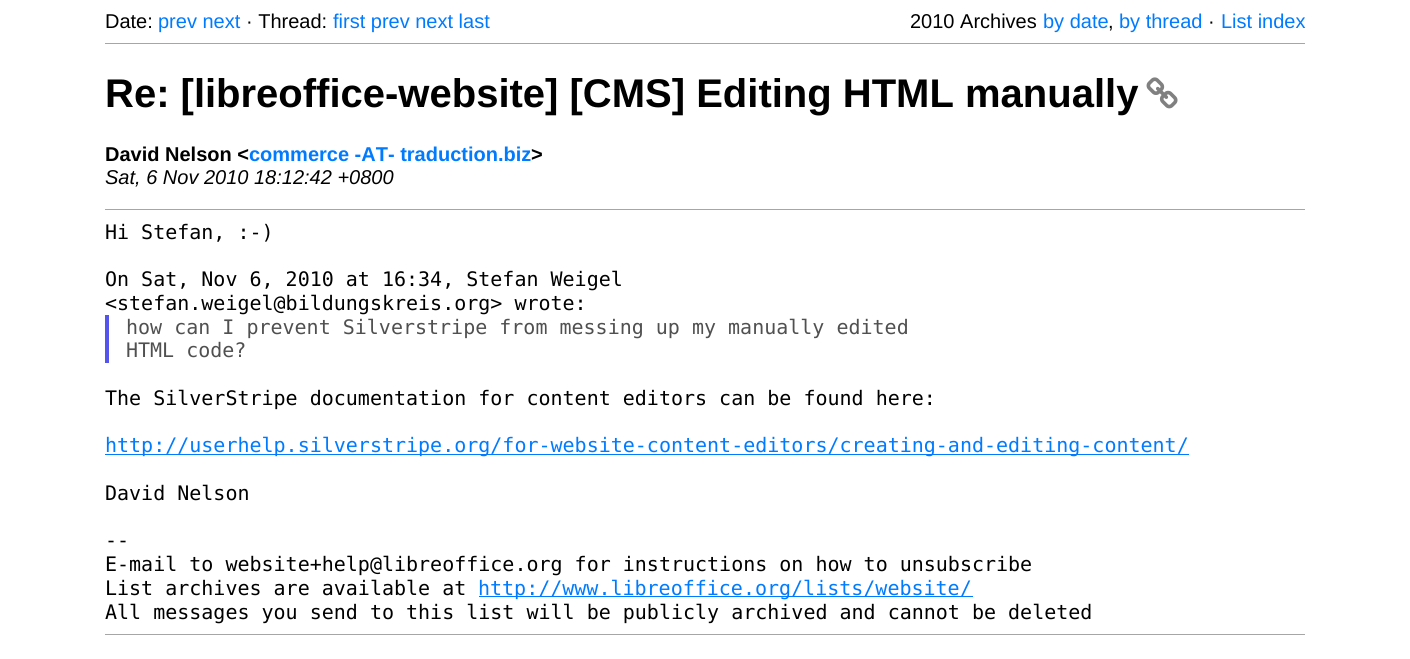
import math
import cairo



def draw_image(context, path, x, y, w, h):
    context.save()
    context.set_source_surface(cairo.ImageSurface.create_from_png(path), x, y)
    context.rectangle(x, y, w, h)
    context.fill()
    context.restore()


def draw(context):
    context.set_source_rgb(1, 1, 1)
    context.paint()
    context.set_source_rgb(166 / 255, 166 / 255, 166 / 255)
    context.rectangle(105, 43, 1200, 1)
    context.fill()
    draw_image(context, "images/1.png", 1146, 77, 32, 32)
    context.rectangle(105, 209, 1200, 1)
    context.fill()
    context.set_source_rgb(85 / 255, 85 / 255, 238 / 255)
    context.rectangle(105, 315, 4, 48)
    context.fill()
    context.set_source_rgb(0, 123 / 255, 1)
    context.rectangle(105, 454, 1084, 1)
    context.fill()
    context.rectangle(479, 596, 494, 1)
    context.fill()
    context.set_source_rgb(166 / 255, 166 / 255, 166 / 255)
    context.rectangle(105, 634, 1200, 1)
    context.fill()
    context.select_font_face("Liberation Sans")
    context.set_font_size(20)
    context.set_source_rgb(0, 0, 0)
    context.move_to(105, 28)
    context.show_text("Date:")
    context.set_source_rgb(0, 123 / 255, 1)
    context.move_to(158, 28)
    context.show_text("prev next")
    context.set_source_rgb(0, 0, 0)
    context.move_to(246, 28)
    context.show_text("· Thread:")
    context.set_source_rgb(0, 123 / 255, 1)
    context.move_to(333, 28)
    context.show_text("first prev next last")
    context.set_source_rgb(0, 0, 0)
    context.move_to(910, 28)
    context.show_text("2010 Archives")
    context.set_source_rgb(0, 123 / 255, 1)
    context.move_to(1043, 28)
    context.show_text("by date")
    context.move_to(1119, 28)
    context.show_text("by thread")
    context.set_source_rgb(0, 0, 0)
    context.move_to(1208, 28)
    context.show_text("·")
    context.set_source_rgb(0, 123 / 255, 1)
    context.move_to(1221, 28)
    context.show_text("List index")
    context.set_source_rgb(0, 0, 0)
    context.move_to(1108, 28)
    context.show_text(",")
    context.select_font_face("Liberation Sans", cairo.FontSlant.NORMAL, cairo.FontWeight.BOLD)
    context.set_font_size(40)
    context.move_to(105, 107)
    context.show_text("Re: [libreoffice-website] [CMS] Editing HTML manually")
    context.set_font_size(20)
    context.move_to(105, 161)
    context.show_text("David Nelson <")
    context.set_source_rgb(0, 123 / 255, 1)
    context.move_to(249, 161)
    context.show_text("commerce -AT- traduction.biz")
    context.set_source_rgb(0, 0, 0)
    context.move_to(531, 161)
    context.show_text(">")
    context.select_font_face("Liberation Sans", cairo.FontSlant.ITALIC)
    context.move_to(105, 184)
    context.show_text("Sat, 6 Nov 2010 18:12:42 +0800")
    context.select_font_face("DejaVu Sans Mono")
    context.move_to(105, 239)
    context.show_text("Hi Stefan, :-)")
    context.move_to(105, 286)
    context.show_text("On Sat, Nov 6, 2010 at 16:34, Stefan Weigel")
    context.move_to(105, 310)
    context.show_text("<stefan.weigel@bildungskreis.org> wrote:")
    context.set_source_rgb(80 / 255, 80 / 255, 80 / 255)
    context.move_to(126, 334)
    context.show_text("how can I prevent Silverstripe from messing up my manually edited")
    context.move_to(126, 357)
    context.show_text("HTML code?")
    context.set_source_rgb(0, 0, 0)
    context.move_to(105, 405)
    context.show_text("The SilverStripe documentation for content editors can be found here:")
    context.set_source_rgb(0, 123 / 255, 1)
    context.move_to(105, 452)
    context.show_text("http://userhelp.silverstripe.org/for-website-content-editors/creating-and-editing-content/")
    context.set_source_rgb(0, 0, 0)
    context.move_to(105, 500)
    context.show_text("David Nelson")
    context.move_to(105, 547)
    context.show_text("--")
    context.move_to(105, 571)
    context.show_text("E-mail to website+help@libreoffice.org for instructions on how to unsubscribe")
    context.move_to(105, 595)
    context.show_text("List archives are available at")
    context.set_source_rgb(0, 123 / 255, 1)
    context.move_to(478, 595)
    context.show_text("http://www.libreoffice.org/lists/website/")
    context.set_source_rgb(0, 0, 0)
    context.move_to(105, 619)
    context.show_text("All messages you send to this list will be publicly archived and cannot be deleted")


surface = cairo.ImageSurface(cairo.Format.RGB24, 1410, 659)
context = cairo.Context(surface)
options = cairo.FontOptions()
options.set_hint_metrics(cairo.HintMetrics.OFF)
options.set_hint_style(cairo.HintStyle.NONE)
context.set_font_options(options)
context.set_miter_limit(4)
draw(context)
surface.write_to_png("out.png")
